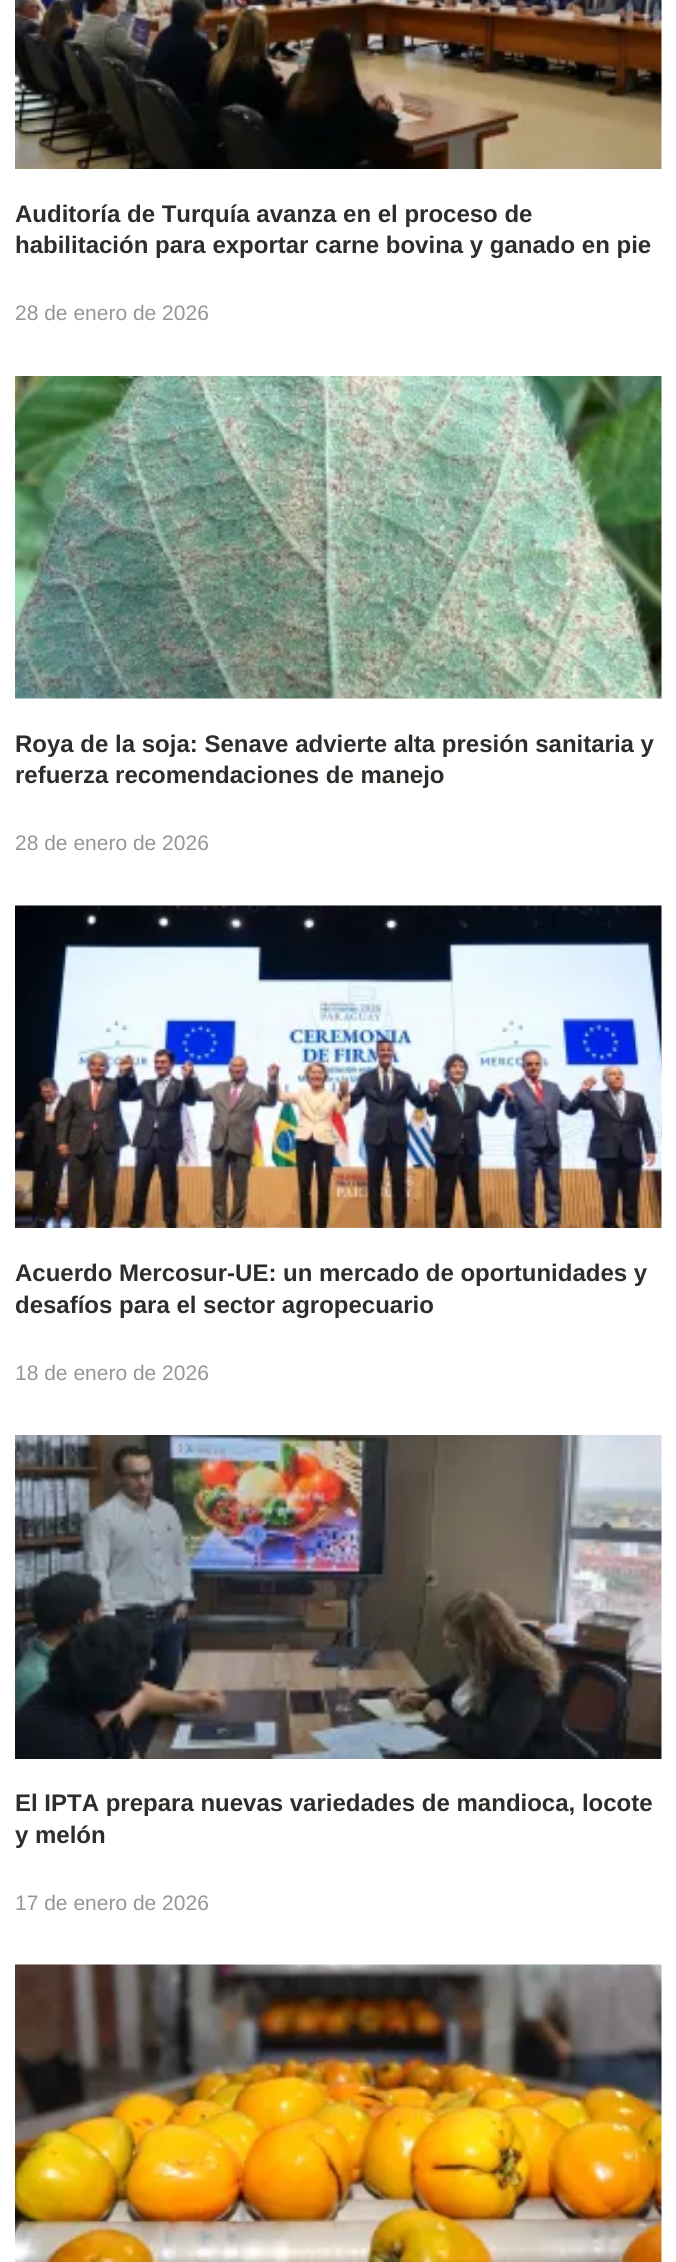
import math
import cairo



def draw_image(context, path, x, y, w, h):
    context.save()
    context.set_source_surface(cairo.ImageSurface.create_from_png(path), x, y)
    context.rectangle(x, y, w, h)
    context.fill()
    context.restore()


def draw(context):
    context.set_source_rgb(1, 1, 1)
    context.paint()
    draw_image(context, "images/1.png", 15, 0, 647, 169)
    draw_image(context, "images/2.png", 15, 376, 647, 323)
    draw_image(context, "images/3.png", 15, 905, 647, 323)
    draw_image(context, "images/4.png", 15, 1435, 647, 324)
    draw_image(context, "images/5.png", 15, 1964, 647, 298)
    context.select_font_face("Liberation Sans", cairo.FontSlant.NORMAL, cairo.FontWeight.BOLD)
    context.set_font_size(24)
    context.set_source_rgb(45 / 255, 45 / 255, 42 / 255)
    context.move_to(15, 222)
    context.show_text("Auditoría de Turquía avanza en el proceso de")
    context.move_to(15, 253)
    context.show_text("habilitación para exportar carne bovina y ganado en pie")
    context.select_font_face("Liberation Sans")
    context.set_font_size(21)
    context.set_source_rgb(149 / 255, 149 / 255, 149 / 255)
    context.move_to(15, 320)
    context.show_text("28 de enero de 2026")
    context.select_font_face("Liberation Sans", cairo.FontSlant.NORMAL, cairo.FontWeight.BOLD)
    context.set_font_size(24)
    context.set_source_rgb(45 / 255, 45 / 255, 42 / 255)
    context.move_to(15, 752)
    context.show_text("Roya de la soja: Senave advierte alta presión sanitaria y")
    context.move_to(15, 783)
    context.show_text("refuerza recomendaciones de manejo")
    context.select_font_face("Liberation Sans")
    context.set_font_size(21)
    context.set_source_rgb(149 / 255, 149 / 255, 149 / 255)
    context.move_to(15, 850)
    context.show_text("28 de enero de 2026")
    context.select_font_face("Liberation Sans", cairo.FontSlant.NORMAL, cairo.FontWeight.BOLD)
    context.set_font_size(24)
    context.set_source_rgb(45 / 255, 45 / 255, 42 / 255)
    context.move_to(15, 1281)
    context.show_text("Acuerdo Mercosur-UE: un mercado de oportunidades y")
    context.move_to(15, 1313)
    context.show_text("desafíos para el sector agropecuario")
    context.select_font_face("Liberation Sans")
    context.set_font_size(21)
    context.set_source_rgb(149 / 255, 149 / 255, 149 / 255)
    context.move_to(15, 1380)
    context.show_text("18 de enero de 2026")
    context.select_font_face("Liberation Sans", cairo.FontSlant.NORMAL, cairo.FontWeight.BOLD)
    context.set_font_size(24)
    context.set_source_rgb(45 / 255, 45 / 255, 42 / 255)
    context.move_to(15, 1811)
    context.show_text("El IPTA prepara nuevas variedades de mandioca, locote")
    context.move_to(15, 1843)
    context.show_text("y melón")
    context.select_font_face("Liberation Sans")
    context.set_font_size(21)
    context.set_source_rgb(149 / 255, 149 / 255, 149 / 255)
    context.move_to(15, 1910)
    context.show_text("17 de enero de 2026")


surface = cairo.ImageSurface(cairo.Format.RGB24, 676, 2262)
context = cairo.Context(surface)
options = cairo.FontOptions()
options.set_hint_metrics(cairo.HintMetrics.OFF)
options.set_hint_style(cairo.HintStyle.NONE)
context.set_font_options(options)
context.set_miter_limit(4)
draw(context)
surface.write_to_png("out.png")
